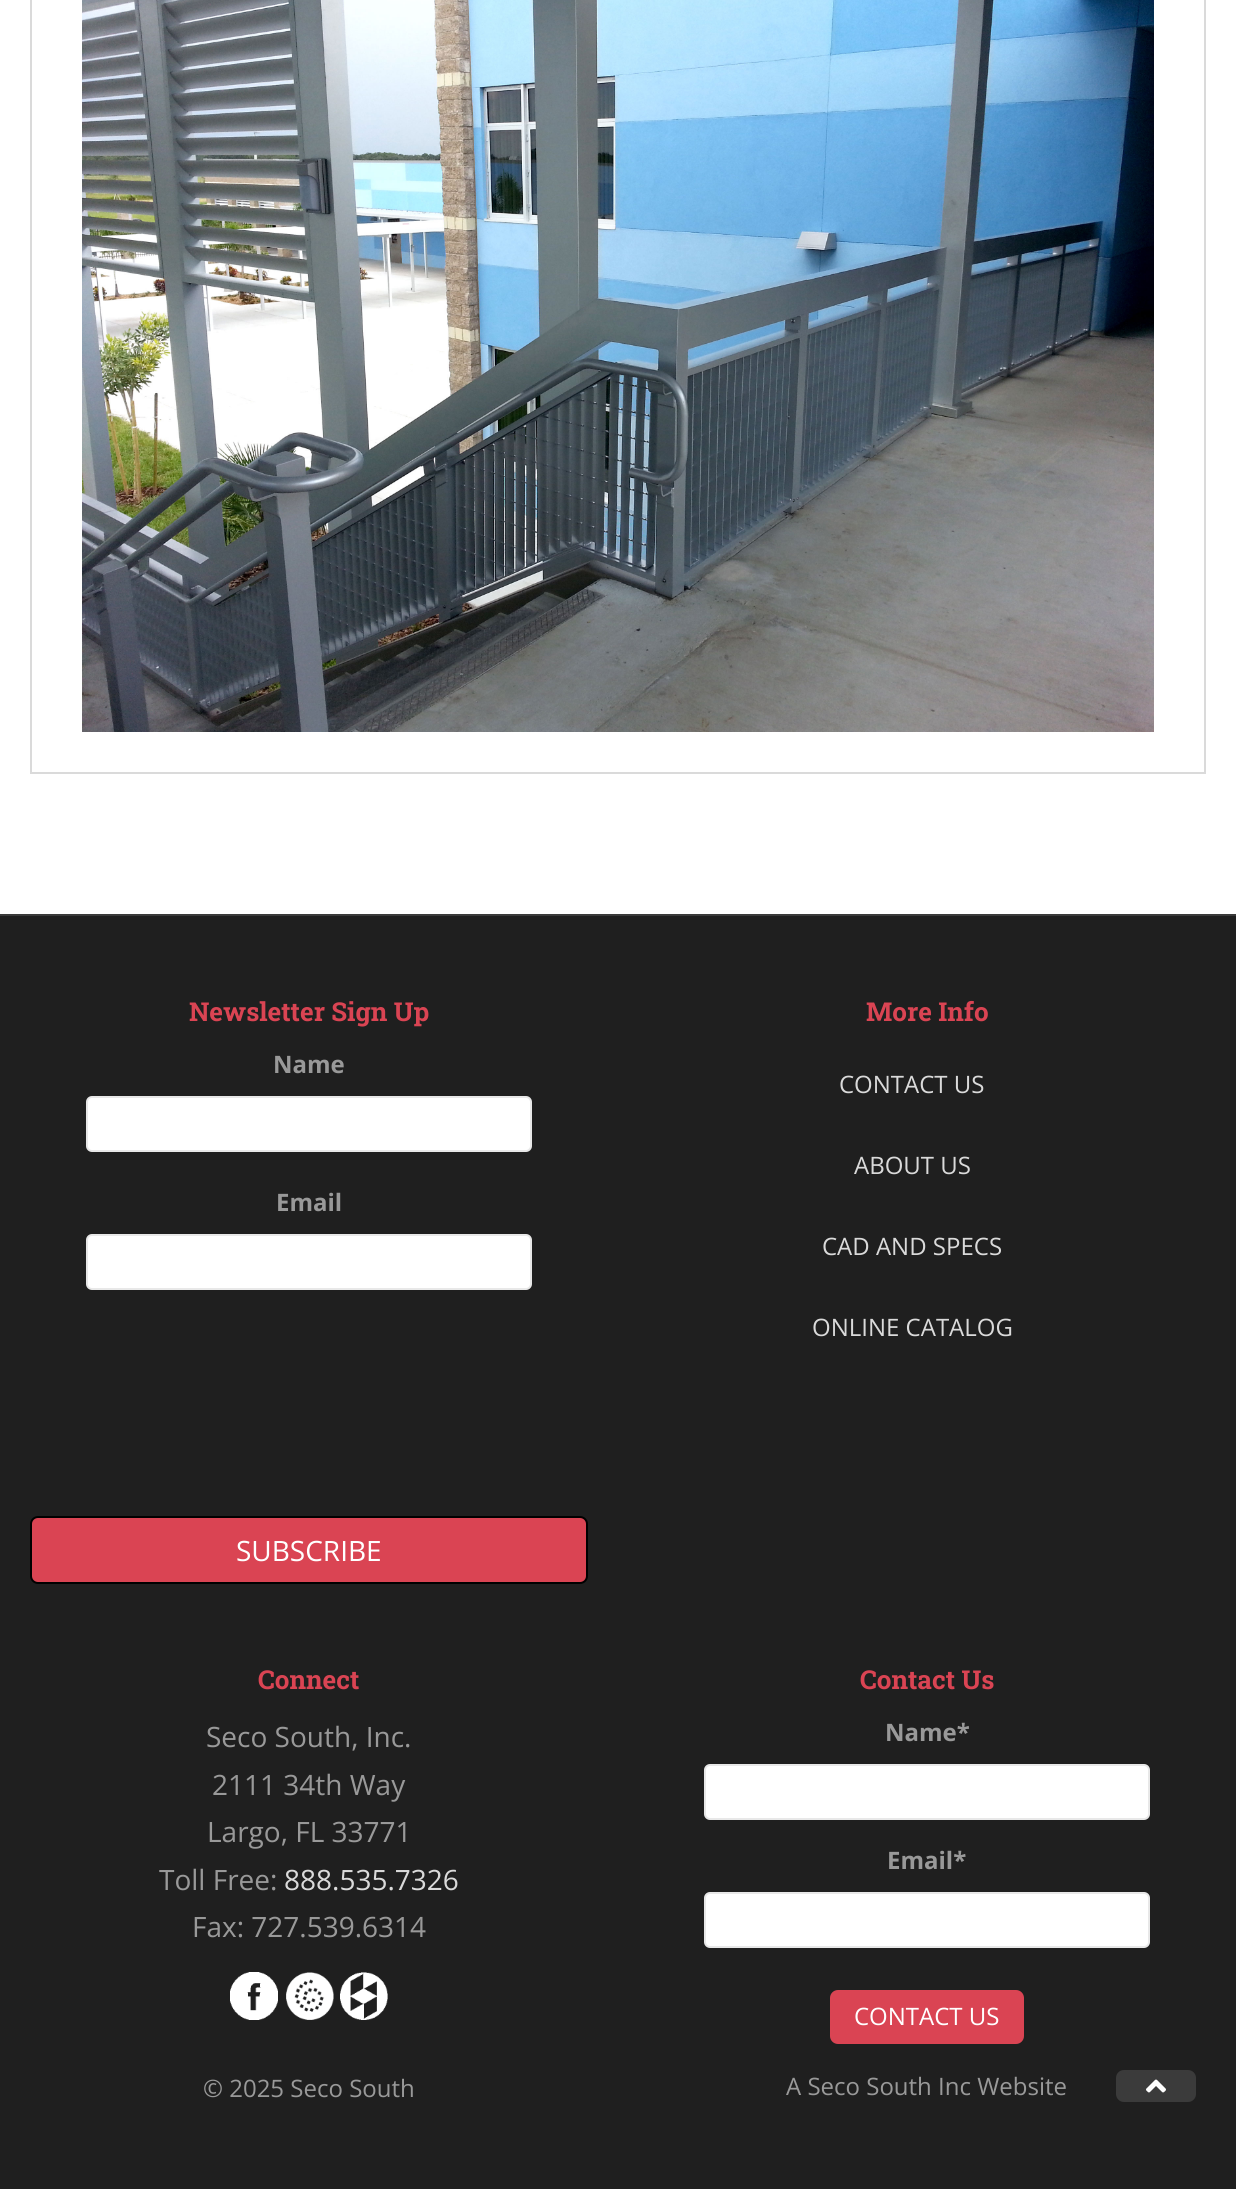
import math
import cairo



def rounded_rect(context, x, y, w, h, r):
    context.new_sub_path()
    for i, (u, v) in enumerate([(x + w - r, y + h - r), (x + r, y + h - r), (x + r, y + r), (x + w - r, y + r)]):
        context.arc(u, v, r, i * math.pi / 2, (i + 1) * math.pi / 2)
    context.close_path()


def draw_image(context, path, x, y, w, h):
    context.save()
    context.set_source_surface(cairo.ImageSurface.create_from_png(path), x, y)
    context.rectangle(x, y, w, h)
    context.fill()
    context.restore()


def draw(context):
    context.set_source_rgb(1, 1, 1)
    context.paint()
    context.rectangle(31, -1, 1174, 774)
    context.set_source_rgb(218 / 255, 218 / 255, 218 / 255)
    context.stroke()
    draw_image(context, "images/1.png", 82, 0, 1072, 732)
    context.set_source_rgb(31 / 255, 31 / 255, 31 / 255)
    context.rectangle(0, 916, 1236, 1273)
    context.fill()
    context.set_source_rgb(58 / 255, 58 / 255, 58 / 255)
    context.rectangle(0, 914, 1236, 2)
    context.fill()
    context.set_source_rgb(1, 1, 1)
    rounded_rect(context, 87, 1097, 444, 54, 5)
    context.fill_preserve()
    context.set_source_rgb(232 / 255, 232 / 255, 232 / 255)
    context.stroke()
    context.set_source_rgb(1, 1, 1)
    rounded_rect(context, 87, 1235, 444, 54, 5)
    context.fill_preserve()
    context.set_source_rgb(232 / 255, 232 / 255, 232 / 255)
    context.stroke()
    context.set_source_rgb(218 / 255, 68 / 255, 83 / 255)
    rounded_rect(context, 31, 1517, 556, 66, 7)
    context.fill_preserve()
    context.set_source_rgb(0, 0, 0)
    context.stroke()
    draw_image(context, "images/2.png", 230, 1972, 48, 48)
    draw_image(context, "images/3.png", 286, 1972, 48, 48)
    draw_image(context, "images/4.png", 340, 1972, 48, 48)
    context.set_source_rgb(1, 1, 1)
    rounded_rect(context, 705, 1765, 444, 54, 5)
    context.fill_preserve()
    context.set_source_rgb(232 / 255, 232 / 255, 232 / 255)
    context.stroke()
    context.set_source_rgb(1, 1, 1)
    rounded_rect(context, 705, 1893, 444, 54, 5)
    context.fill_preserve()
    context.set_source_rgb(232 / 255, 232 / 255, 232 / 255)
    context.stroke()
    context.set_source_rgb(218 / 255, 68 / 255, 83 / 255)
    rounded_rect(context, 830, 1990, 194, 54, 8)
    context.fill()
    context.set_source_rgb(59 / 255, 59 / 255, 59 / 255)
    rounded_rect(context, 1116, 2070, 80, 32, 8)
    context.fill()
    draw_image(context, "images/5.png", 1146, 2079, 20, 14)
    context.select_font_face("Roboto Slab", cairo.FontSlant.NORMAL, cairo.FontWeight.BOLD)
    context.set_font_size(26)
    context.set_source_rgb(218 / 255, 68 / 255, 83 / 255)
    context.move_to(189, 1021)
    context.show_text("Newsletter Sign Up")
    context.select_font_face("Open Sans", cairo.FontSlant.NORMAL, cairo.FontWeight.BOLD)
    context.set_font_size(24)
    context.set_source_rgb(153 / 255, 153 / 255, 153 / 255)
    context.move_to(273, 1073)
    context.show_text("Name")
    context.move_to(276, 1211)
    context.show_text("Email")
    context.select_font_face("Open Sans")
    context.set_font_size(28)
    context.set_source_rgb(1, 1, 1)
    context.move_to(236, 1561)
    context.show_text("SUBSCRIBE")
    context.select_font_face("Roboto Slab", cairo.FontSlant.NORMAL, cairo.FontWeight.BOLD)
    context.set_font_size(26)
    context.set_source_rgb(218 / 255, 68 / 255, 83 / 255)
    context.move_to(866, 1021)
    context.show_text("More Info")
    context.select_font_face("Open Sans")
    context.set_font_size(24)
    context.set_source_rgb(218 / 255, 218 / 255, 218 / 255)
    context.move_to(839, 1093)
    context.show_text("CONTACT US")
    context.move_to(854, 1174)
    context.show_text("ABOUT US")
    context.move_to(822, 1255)
    context.show_text("CAD AND SPECS")
    context.move_to(812, 1336)
    context.show_text("ONLINE CATALOG")
    context.select_font_face("Roboto Slab", cairo.FontSlant.NORMAL, cairo.FontWeight.BOLD)
    context.set_font_size(26)
    context.set_source_rgb(218 / 255, 68 / 255, 83 / 255)
    context.move_to(258, 1689)
    context.show_text("Connect")
    context.select_font_face("Open Sans")
    context.set_font_size(28)
    context.set_source_rgb(153 / 255, 153 / 255, 153 / 255)
    context.move_to(206, 1747)
    context.show_text("Seco South, Inc.")
    context.move_to(212, 1795)
    context.show_text("2111 34th Way")
    context.move_to(207, 1842)
    context.show_text("Largo, FL 33771")
    context.move_to(159, 1890)
    context.show_text("Toll Free:")
    context.set_source_rgb(218 / 255, 218 / 255, 218 / 255)
    context.move_to(284, 1890)
    context.show_text("888.535.7326")
    context.set_source_rgb(153 / 255, 153 / 255, 153 / 255)
    context.move_to(192, 1937)
    context.show_text("Fax: 727.539.6314")
    context.set_font_size(24)
    context.move_to(203, 2097)
    context.show_text("© 2025 Seco South")
    context.select_font_face("Roboto Slab", cairo.FontSlant.NORMAL, cairo.FontWeight.BOLD)
    context.set_font_size(26)
    context.set_source_rgb(218 / 255, 68 / 255, 83 / 255)
    context.move_to(860, 1689)
    context.show_text("Contact Us")
    context.select_font_face("Open Sans", cairo.FontSlant.NORMAL, cairo.FontWeight.BOLD)
    context.set_font_size(24)
    context.set_source_rgb(153 / 255, 153 / 255, 153 / 255)
    context.move_to(885, 1741)
    context.show_text("Name*")
    context.move_to(887, 1869)
    context.show_text("Email*")
    context.select_font_face("Open Sans")
    context.set_source_rgb(1, 1, 1)
    context.move_to(854, 2025)
    context.show_text("CONTACT US")
    context.set_source_rgb(153 / 255, 153 / 255, 153 / 255)
    context.move_to(786, 2095)
    context.show_text("A Seco South Inc Website")


surface = cairo.ImageSurface(cairo.Format.RGB24, 1236, 2189)
context = cairo.Context(surface)
options = cairo.FontOptions()
options.set_hint_metrics(cairo.HintMetrics.OFF)
options.set_hint_style(cairo.HintStyle.NONE)
context.set_font_options(options)
context.set_miter_limit(4)
draw(context)
surface.write_to_png("out.png")
